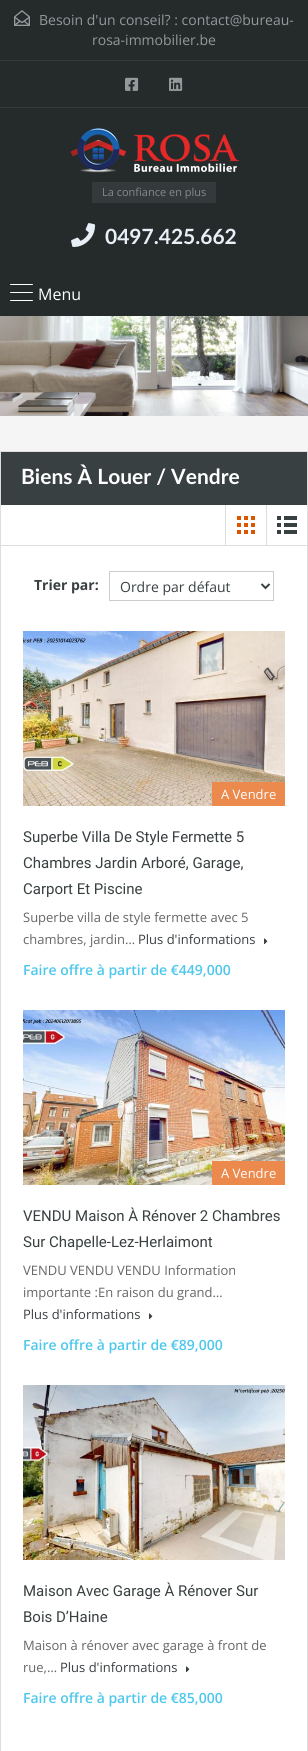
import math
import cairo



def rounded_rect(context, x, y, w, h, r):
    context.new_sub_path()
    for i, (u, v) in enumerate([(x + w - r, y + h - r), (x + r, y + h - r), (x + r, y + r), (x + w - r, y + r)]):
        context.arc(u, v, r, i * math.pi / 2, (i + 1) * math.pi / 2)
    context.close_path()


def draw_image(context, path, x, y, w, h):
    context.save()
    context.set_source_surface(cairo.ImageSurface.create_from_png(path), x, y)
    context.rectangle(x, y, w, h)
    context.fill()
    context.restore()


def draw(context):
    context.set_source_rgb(245 / 255, 245 / 255, 245 / 255)
    context.paint()
    context.set_source_rgb(37 / 255, 42 / 255, 43 / 255)
    context.rectangle(0, 0, 308, 316)
    context.fill()
    context.set_source_rgb(52 / 255, 58 / 255, 59 / 255)
    context.rectangle(0, 107, 308, 1)
    context.fill()
    draw_image(context, "images/1.png", 14, 10, 16, 16)
    context.rectangle(0, 60, 308, 1)
    context.fill()
    draw_image(context, "images/2.png", 125, 77, 14, 14)
    draw_image(context, "images/3.png", 169, 77, 14, 14)
    draw_image(context, "images/4.png", 70, 128, 169, 45)
    context.rectangle(92, 182, 124, 21)
    context.fill()
    draw_image(context, "images/5.png", 71, 223, 25, 24)
    context.set_source_rgb(1, 1, 1)
    rounded_rect(context, 10, 292, 23, 1, 0.5)
    context.fill()
    rounded_rect(context, 10, 284, 23, 1, 0.5)
    context.fill()
    rounded_rect(context, 10, 300, 23, 1, 0.5)
    context.fill()
    draw_image(context, "images/6.png", 0, 316, 308, 100)
    context.set_source_rgb(222 / 255, 222 / 255, 222 / 255)
    context.rectangle(307, 451, 1, 1300)
    context.fill()
    context.rectangle(0, 451, 1, 1300)
    context.fill()
    context.set_source_rgb(1, 1, 1)
    context.rectangle(1, 505, 306, 1246)
    context.fill()
    context.set_source_rgb(222 / 255, 222 / 255, 222 / 255)
    context.rectangle(1, 451, 306, 1)
    context.fill()
    context.set_source_rgb(57 / 255, 64 / 255, 65 / 255)
    context.rectangle(1, 452, 306, 53)
    context.fill()
    context.set_source_rgb(222 / 255, 222 / 255, 222 / 255)
    context.rectangle(1, 545, 306, 1)
    context.fill()
    context.rectangle(225, 505, 1, 40)
    context.fill()
    draw_image(context, "images/7.png", 237, 516, 18, 18)
    context.rectangle(266, 505, 1, 40)
    context.fill()
    draw_image(context, "images/8.png", 277, 516, 20, 18)
    context.rectangle(109.5, 571.5, 164, 29)
    context.set_source_rgb(204 / 255, 204 / 255, 204 / 255)
    context.set_line_width(1)
    context.stroke()
    context.new_path()
    context.move_to(261.5, 584)
    context.line_to(265.5, 588)
    context.line_to(269.5, 584)
    context.set_source_rgb(57 / 255, 64 / 255, 65 / 255)
    context.set_line_width(2)
    context.stroke()
    draw_image(context, "images/9.png", 23, 631, 262, 175)
    context.set_source_rgb(236 / 255, 137 / 255, 77 / 255)
    context.rectangle(212, 782, 73, 24)
    context.fill()
    draw_image(context, "images/10.png", 264, 938, 4, 7)
    draw_image(context, "images/11.png", 23, 1010, 262, 175)
    context.rectangle(212, 1161, 73, 24)
    context.fill()
    draw_image(context, "images/10.png", 149, 1313, 4, 7)
    draw_image(context, "images/12.png", 23, 1385, 262, 175)
    draw_image(context, "images/10.png", 186, 1666, 4, 7)
    context.select_font_face("Open Sans")
    context.set_font_size(14)
    context.set_source_rgb(146 / 255, 154 / 255, 155 / 255)
    context.move_to(39, 25)
    context.show_text("Besoin d'un conseil? : contact@bureau-")
    context.move_to(92, 45)
    context.show_text("rosa-immobilier.be")
    context.set_font_size(11)
    context.set_source_rgb(136 / 255, 136 / 255, 136 / 255)
    context.move_to(102, 196)
    context.show_text("La confiance en plus")
    context.select_font_face("Lato", cairo.FontSlant.NORMAL, cairo.FontWeight.BOLD)
    context.set_font_size(21)
    context.set_source_rgb(231 / 255, 239 / 255, 247 / 255)
    context.move_to(105, 244)
    context.show_text("0497.425.662")
    context.select_font_face("Open Sans")
    context.set_font_size(16)
    context.set_source_rgb(1, 1, 1)
    context.move_to(38, 300)
    context.show_text("Menu")
    context.select_font_face("Lato", cairo.FontSlant.NORMAL, cairo.FontWeight.BOLD)
    context.set_font_size(21)
    context.move_to(21, 484)
    context.show_text("Biens À Louer / Vendre")
    context.select_font_face("Open Sans", cairo.FontSlant.NORMAL, cairo.FontWeight.BOLD)
    context.set_font_size(14)
    context.set_source_rgb(57 / 255, 64 / 255, 65 / 255)
    context.move_to(34, 590)
    context.show_text("Trier par:")
    context.select_font_face("Open Sans")
    context.move_to(120, 592)
    context.show_text("Ordre par défaut")
    context.set_font_size(13)
    context.set_source_rgb(1, 1, 1)
    context.move_to(221, 799)
    context.show_text("A Vendre")
    context.select_font_face("Roboto")
    context.set_font_size(15)
    context.set_source_rgb(57 / 255, 64 / 255, 65 / 255)
    context.move_to(23, 842)
    context.show_text("Superbe Villa De Style Fermette 5")
    context.move_to(23, 868)
    context.show_text("Chambres Jardin Arboré, Garage,")
    context.move_to(23, 894)
    context.show_text("Carport Et Piscine")
    context.select_font_face("Open Sans")
    context.set_font_size(13)
    context.set_source_rgb(102 / 255, 102 / 255, 102 / 255)
    context.move_to(23, 922)
    context.show_text("Superbe villa de style fermette avec 5")
    context.move_to(23, 944)
    context.show_text("chambres, jardin…")
    context.set_source_rgb(57 / 255, 64 / 255, 65 / 255)
    context.move_to(138, 944)
    context.show_text("Plus d'informations")
    context.select_font_face("Open Sans SemiBold")
    context.set_font_size(14)
    context.set_source_rgb(77 / 255, 199 / 255, 236 / 255)
    context.move_to(23, 975)
    context.show_text("Faire offre à partir de €449,000")
    context.select_font_face("Open Sans")
    context.set_font_size(13)
    context.set_source_rgb(1, 1, 1)
    context.move_to(221, 1178)
    context.show_text("A Vendre")
    context.select_font_face("Roboto")
    context.set_font_size(15)
    context.set_source_rgb(57 / 255, 64 / 255, 65 / 255)
    context.move_to(23, 1221)
    context.show_text("VENDU Maison À Rénover 2 Chambres")
    context.move_to(23, 1247)
    context.show_text("Sur Chapelle-Lez-Herlaimont")
    context.select_font_face("Open Sans")
    context.set_font_size(13)
    context.set_source_rgb(102 / 255, 102 / 255, 102 / 255)
    context.move_to(23, 1275)
    context.show_text("VENDU VENDU VENDU Information")
    context.move_to(23, 1297)
    context.show_text("importante :En raison du grand…")
    context.set_source_rgb(57 / 255, 64 / 255, 65 / 255)
    context.move_to(23, 1319)
    context.show_text("Plus d'informations")
    context.select_font_face("Open Sans SemiBold")
    context.set_font_size(14)
    context.set_source_rgb(77 / 255, 199 / 255, 236 / 255)
    context.move_to(23, 1350)
    context.show_text("Faire offre à partir de €89,000")
    context.select_font_face("Roboto")
    context.set_font_size(15)
    context.set_source_rgb(57 / 255, 64 / 255, 65 / 255)
    context.move_to(23, 1596)
    context.show_text("Maison Avec Garage À Rénover Sur")
    context.move_to(23, 1622)
    context.show_text("Bois D’Haine")
    context.select_font_face("Open Sans")
    context.set_font_size(13)
    context.set_source_rgb(102 / 255, 102 / 255, 102 / 255)
    context.move_to(23, 1650)
    context.show_text("Maison à rénover avec garage à front de")
    context.move_to(23, 1672)
    context.show_text("rue,…")
    context.set_source_rgb(57 / 255, 64 / 255, 65 / 255)
    context.move_to(60, 1672)
    context.show_text("Plus d'informations")
    context.select_font_face("Open Sans SemiBold")
    context.set_font_size(14)
    context.set_source_rgb(77 / 255, 199 / 255, 236 / 255)
    context.move_to(23, 1703)
    context.show_text("Faire offre à partir de €85,000")


surface = cairo.ImageSurface(cairo.Format.RGB24, 308, 1751)
context = cairo.Context(surface)
options = cairo.FontOptions()
options.set_hint_metrics(cairo.HintMetrics.OFF)
options.set_hint_style(cairo.HintStyle.NONE)
context.set_font_options(options)
context.set_miter_limit(4)
draw(context)
surface.write_to_png("out.png")
